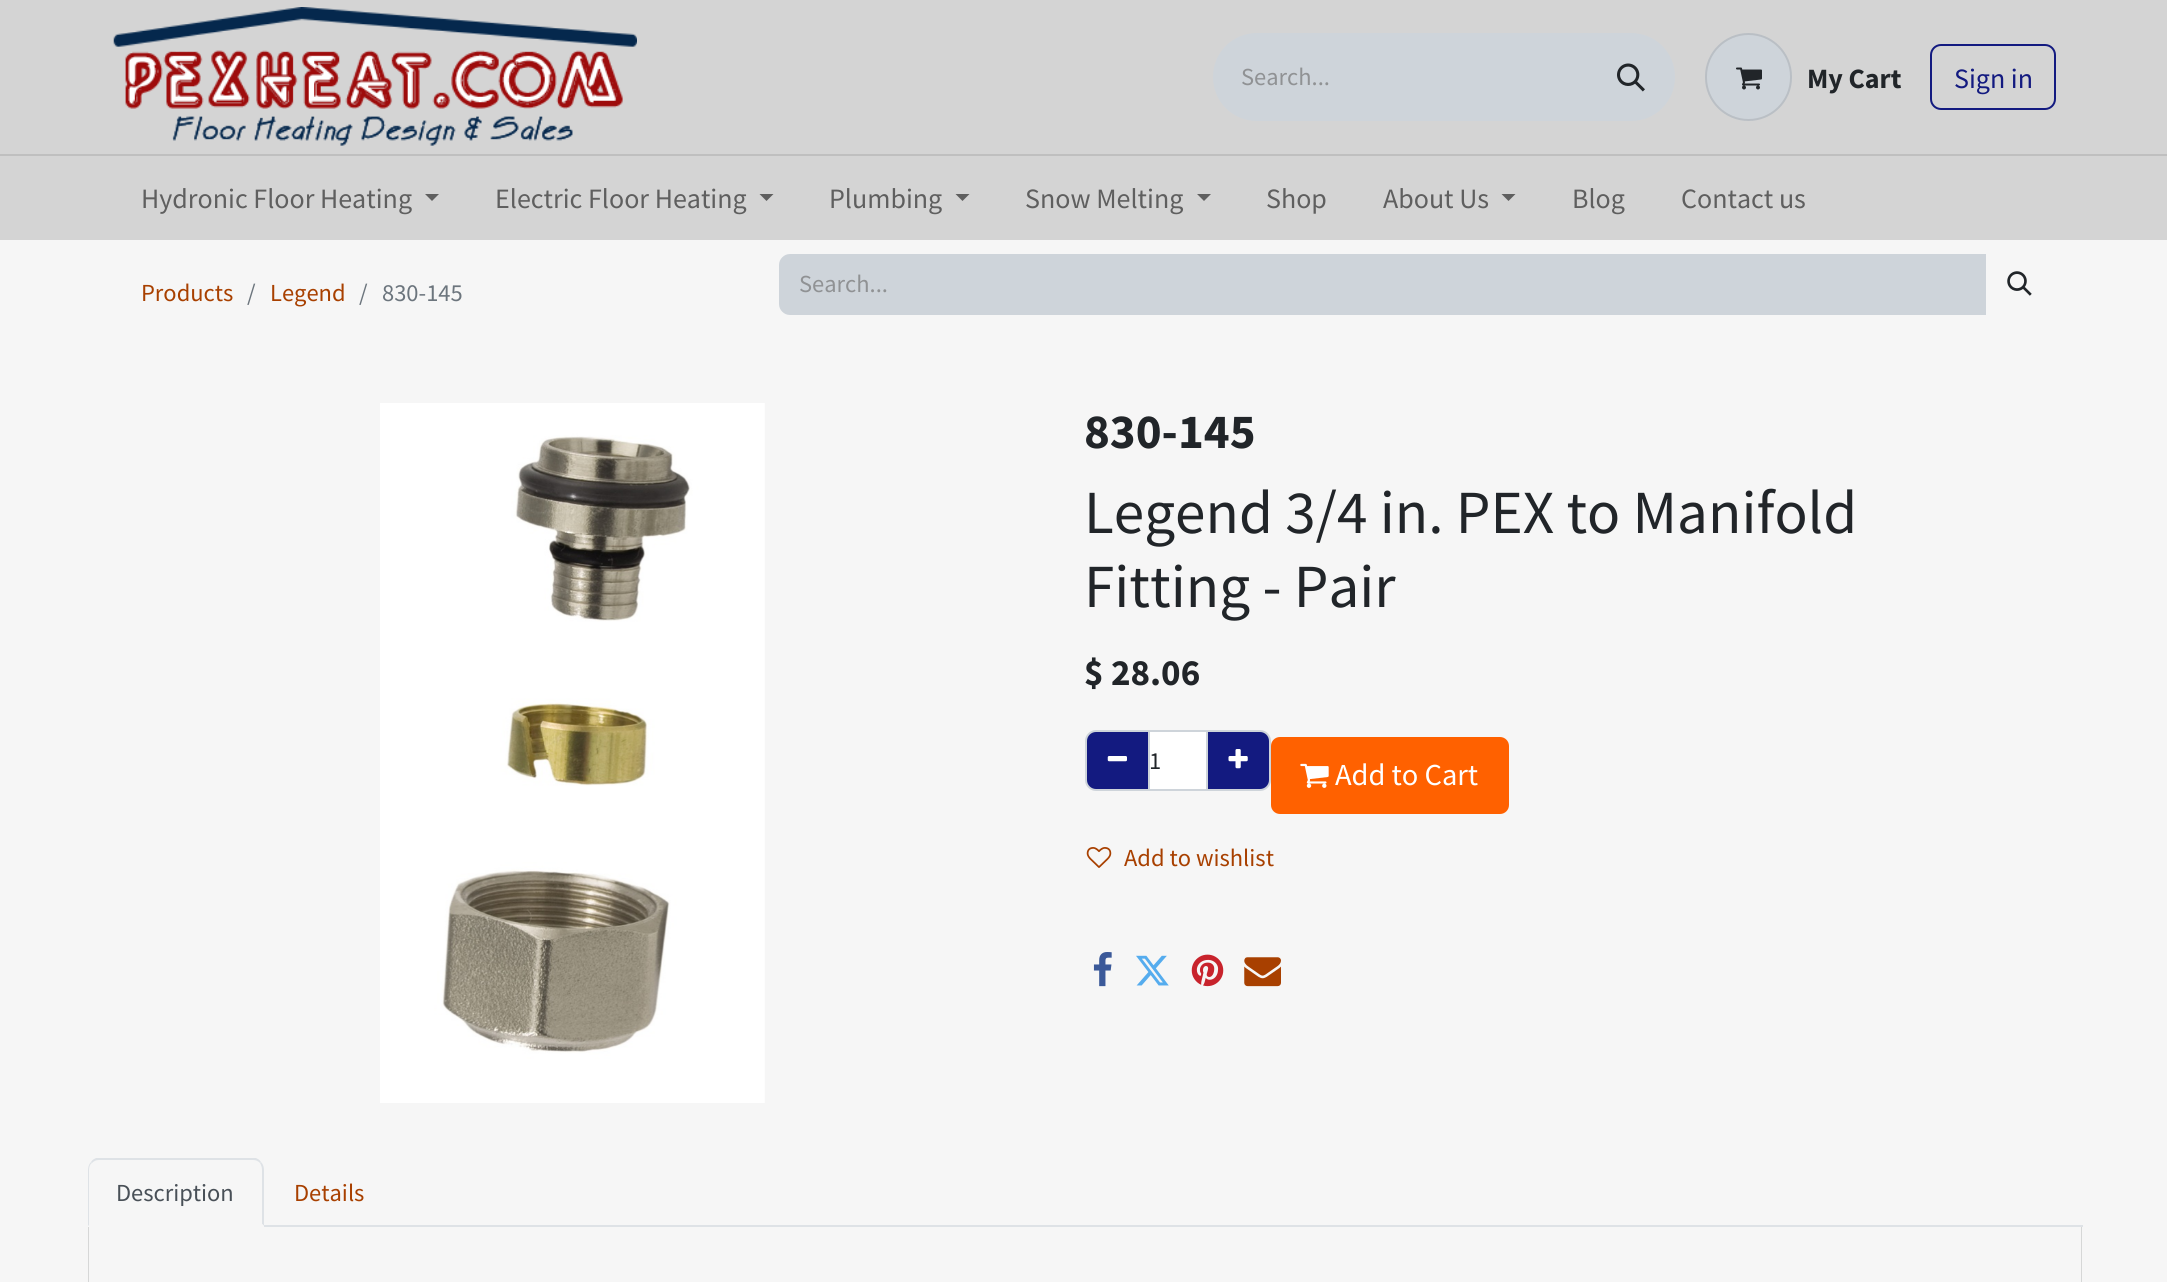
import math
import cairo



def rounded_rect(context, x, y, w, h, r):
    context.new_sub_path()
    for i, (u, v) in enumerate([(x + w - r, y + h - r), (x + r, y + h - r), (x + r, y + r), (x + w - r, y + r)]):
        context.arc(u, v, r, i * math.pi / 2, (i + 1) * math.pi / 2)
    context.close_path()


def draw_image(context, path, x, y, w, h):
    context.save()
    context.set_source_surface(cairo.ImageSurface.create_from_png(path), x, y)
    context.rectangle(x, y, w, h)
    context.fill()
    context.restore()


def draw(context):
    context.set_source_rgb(246 / 255, 246 / 255, 246 / 255)
    context.paint()
    context.set_source_rgb(212 / 255, 212 / 255, 212 / 255)
    context.rectangle(0, 0, 2167, 240)
    context.fill()
    draw_image(context, "images/1.png", 113, 7, 524, 139)
    context.set_source_rgb(206 / 255, 212 / 255, 218 / 255)
    context.new_path()
    context.move_to(1257, 33)
    context.line_to(1589, 33)
    context.line_to(1589, 121)
    context.line_to(1257, 121)
    context.curve_to(1232.5, 121, 1213, 101.5, 1213, 77)
    context.curve_to(1213, 52.5, 1232.5, 33, 1257, 33)
    context.close_path()
    context.fill()
    context.new_path()
    context.move_to(1587, 33)
    context.line_to(1631, 33)
    context.curve_to(1655.5, 33, 1675, 52.5, 1675, 77)
    context.curve_to(1675, 101.5, 1655.5, 121, 1631, 121)
    context.line_to(1587, 121)
    context.close_path()
    context.fill()
    draw_image(context, "images/2.png", 1617, 63, 28, 29)
    rounded_rect(context, 1705, 33, 87, 88, 43.5)
    context.fill()
    rounded_rect(context, 1706, 34, 85, 86, 42.5)
    context.set_source_rgba(0, 0, 0, 0.1)
    context.stroke()
    draw_image(context, "images/3.png", 1736, 67, 26, 23)
    rounded_rect(context, 1931, 45, 124, 64, 10)
    context.set_source_rgb(19 / 255, 26 / 255, 128 / 255)
    context.stroke()
    context.set_source_rgb(191 / 255, 191 / 255, 191 / 255)
    context.rectangle(0, 154, 2167, 2)
    context.fill()
    context.set_source_rgb(95 / 255, 95 / 255, 95 / 255)
    context.new_path()
    context.move_to(425, 194)
    context.line_to(439, 194)
    context.line_to(432, 201)
    context.close_path()
    context.fill()
    context.new_path()
    context.move_to(759.5, 194)
    context.line_to(773.5, 194)
    context.line_to(766.5, 201)
    context.close_path()
    context.fill()
    context.new_path()
    context.move_to(955.5, 194)
    context.line_to(969.5, 194)
    context.line_to(962.5, 201)
    context.close_path()
    context.fill()
    context.new_path()
    context.move_to(1197, 194)
    context.line_to(1211, 194)
    context.line_to(1204, 201)
    context.close_path()
    context.fill()
    context.new_path()
    context.move_to(1501.5, 194)
    context.line_to(1515.5, 194)
    context.line_to(1508.5, 201)
    context.close_path()
    context.fill()
    context.set_source_rgb(206 / 255, 212 / 255, 218 / 255)
    context.new_path()
    context.move_to(790, 254)
    context.line_to(1986, 254)
    context.line_to(1986, 315)
    context.line_to(790, 315)
    context.curve_to(784, 315, 779, 310, 779, 304)
    context.line_to(779, 265)
    context.curve_to(779, 259, 784, 254, 790, 254)
    context.close_path()
    context.fill()
    draw_image(context, "images/4.png", 2007, 271, 25, 25)
    draw_image(context, "images/5.png", 380, 403, 385, 700)
    context.set_source_rgb(1, 1, 1)
    context.rectangle(1149, 731, 58, 59)
    context.fill_preserve()
    context.set_source_rgb(206 / 255, 212 / 255, 218 / 255)
    context.stroke()
    context.set_source_rgb(19 / 255, 26 / 255, 128 / 255)
    context.new_path()
    context.move_to(1096, 731)
    context.line_to(1149, 731)
    context.line_to(1149, 790)
    context.line_to(1096, 790)
    context.curve_to(1090.5, 790, 1086, 785.5, 1086, 780)
    context.line_to(1086, 741)
    context.curve_to(1086, 735.5, 1090.5, 731, 1096, 731)
    context.close_path()
    context.fill_preserve()
    context.set_source_rgb(206 / 255, 212 / 255, 218 / 255)
    context.stroke()
    draw_image(context, "images/6.png", 1107, 756, 20, 6)
    context.set_source_rgb(19 / 255, 26 / 255, 128 / 255)
    context.new_path()
    context.move_to(1207, 731)
    context.line_to(1260, 731)
    context.curve_to(1265.5, 731, 1270, 735.5, 1270, 741)
    context.line_to(1270, 780)
    context.curve_to(1270, 785.5, 1265.5, 790, 1260, 790)
    context.line_to(1207, 790)
    context.close_path()
    context.fill_preserve()
    context.set_source_rgb(206 / 255, 212 / 255, 218 / 255)
    context.stroke()
    draw_image(context, "images/7.png", 1228, 749, 20, 20)
    context.set_source_rgb(1, 97 / 255, 0)
    rounded_rect(context, 1272, 738, 236, 75, 8)
    context.fill_preserve()
    context.stroke()
    draw_image(context, "images/8.png", 1300, 763, 29, 25)
    draw_image(context, "images/9.png", 1086, 847, 26, 21)
    draw_image(context, "images/10.png", 1093, 952, 19, 35)
    draw_image(context, "images/11.png", 1136, 955, 33, 31)
    draw_image(context, "images/12.png", 1191, 954, 33, 33)
    draw_image(context, "images/13.png", 1244, 957, 37, 30)
    context.set_source_rgb(222 / 255, 226 / 255, 230 / 255)
    context.rectangle(264, 1225, 1819, 2)
    context.fill()
    context.new_path()
    context.move_to(99, 1160)
    context.curve_to(96, 1160, 94, 1161, 92, 1163)
    context.line_to(91, 1162)
    context.curve_to(92, 1160, 94, 1159, 96, 1158)
    context.line_to(256, 1158)
    context.curve_to(258, 1159, 260, 1160, 261, 1162)
    context.line_to(260, 1163)
    context.curve_to(258, 1161, 256, 1160, 253, 1160)
    context.close_path()
    context.fill()
    context.new_path()
    context.move_to(261, 1162)
    context.curve_to(263, 1164, 264, 1167, 264, 1170)
    context.line_to(264, 1226)
    context.line_to(262, 1224)
    context.line_to(262, 1170)
    context.curve_to(262, 1167, 261, 1165, 260, 1163)
    context.close_path()
    context.fill()
    context.set_source_rgb(246 / 255, 246 / 255, 246 / 255)
    context.new_path()
    context.move_to(88, 1227)
    context.line_to(89, 1225)
    context.line_to(262, 1225)
    context.line_to(262, 1224)
    context.line_to(264, 1226)
    context.close_path()
    context.fill()
    context.set_source_rgb(222 / 255, 226 / 255, 230 / 255)
    context.new_path()
    context.move_to(88, 1226)
    context.line_to(88, 1170)
    context.curve_to(88, 1167, 89, 1164, 91, 1162)
    context.line_to(92, 1163)
    context.curve_to(90, 1164, 89, 1167, 89, 1170)
    context.line_to(89, 1225)
    context.close_path()
    context.fill()
    context.set_source_rgb(214 / 255, 215 / 255, 215 / 255)
    context.new_path()
    context.move_to(2082, 1227)
    context.line_to(2082, 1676)
    context.line_to(2081, 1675)
    context.line_to(2081, 1227)
    context.close_path()
    context.fill()
    context.new_path()
    context.move_to(88, 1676)
    context.line_to(88, 1227)
    context.line_to(89, 1227)
    context.line_to(89, 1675)
    context.close_path()
    context.fill()
    context.select_font_face("Source Sans Pro")
    context.set_font_size(24.5)
    context.set_source_rgb(144 / 255, 146 / 255, 148 / 255)
    context.move_to(1241, 85)
    context.show_text("Search...")
    context.select_font_face("Source Sans Pro", cairo.FontSlant.NORMAL, cairo.FontWeight.BOLD)
    context.set_font_size(28)
    context.set_source_rgb(33 / 255, 37 / 255, 41 / 255)
    context.move_to(1807, 88)
    context.show_text("My Cart")
    context.select_font_face("Source Sans Pro")
    context.set_source_rgb(19 / 255, 26 / 255, 128 / 255)
    context.move_to(1954, 88)
    context.show_text("Sign in")
    context.set_source_rgb(95 / 255, 95 / 255, 95 / 255)
    context.move_to(141, 208)
    context.show_text("Hydronic Floor Heating")
    context.move_to(495, 208)
    context.show_text("Electric Floor Heating")
    context.move_to(829, 208)
    context.show_text("Plumbing")
    context.move_to(1025, 208)
    context.show_text("Snow Melting")
    context.move_to(1266, 208)
    context.show_text("Shop")
    context.move_to(1383, 208)
    context.show_text("About Us")
    context.move_to(1572, 208)
    context.show_text("Blog")
    context.move_to(1681, 208)
    context.show_text("Contact us")
    context.set_font_size(24.5)
    context.set_source_rgb(168 / 255, 64 / 255, 0)
    context.move_to(141, 301)
    context.show_text("Products")
    context.set_source_rgb(108 / 255, 117 / 255, 125 / 255)
    context.move_to(247, 301)
    context.show_text("/")
    context.set_source_rgb(168 / 255, 64 / 255, 0)
    context.move_to(270, 301)
    context.show_text("Legend")
    context.set_source_rgb(108 / 255, 117 / 255, 125 / 255)
    context.move_to(359, 301)
    context.show_text("/")
    context.move_to(382, 301)
    context.show_text("830-145")
    context.set_source_rgb(144 / 255, 146 / 255, 148 / 255)
    context.move_to(799, 292)
    context.show_text("Search...")
    context.select_font_face("Source Sans Pro", cairo.FontSlant.NORMAL, cairo.FontWeight.BOLD)
    context.set_font_size(49)
    context.set_source_rgb(33 / 255, 37 / 255, 41 / 255)
    context.move_to(1084, 448)
    context.show_text("830-145")
    context.select_font_face("Source Sans Pro")
    context.set_font_size(61.25)
    context.move_to(1084, 533)
    context.show_text("Legend 3/4 in. PEX to Manifold")
    context.move_to(1084, 607)
    context.show_text("Fitting - Pair")
    context.select_font_face("Source Sans Pro", cairo.FontSlant.NORMAL, cairo.FontWeight.BOLD)
    context.set_font_size(37)
    context.move_to(1084, 685)
    context.show_text("$ 28.06")
    context.select_font_face("Source Sans Pro")
    context.set_font_size(24.5)
    context.move_to(1149, 769)
    context.show_text("1")
    context.set_font_size(30.5)
    context.set_source_rgb(1, 1, 1)
    context.move_to(1335, 785)
    context.show_text("Add to Cart")
    context.set_font_size(24.5)
    context.set_source_rgb(168 / 255, 64 / 255, 0)
    context.move_to(1124, 866)
    context.show_text("Add to wishlist")
    context.set_source_rgb(73 / 255, 80 / 255, 87 / 255)
    context.move_to(116, 1201)
    context.show_text("Description")
    context.set_source_rgb(168 / 255, 64 / 255, 0)
    context.move_to(294, 1201)
    context.show_text("Details")


surface = cairo.ImageSurface(cairo.Format.RGB24, 2167, 1282)
context = cairo.Context(surface)
options = cairo.FontOptions()
options.set_hint_metrics(cairo.HintMetrics.OFF)
options.set_hint_style(cairo.HintStyle.NONE)
context.set_font_options(options)
context.set_miter_limit(4)
draw(context)
surface.write_to_png("out.png")
